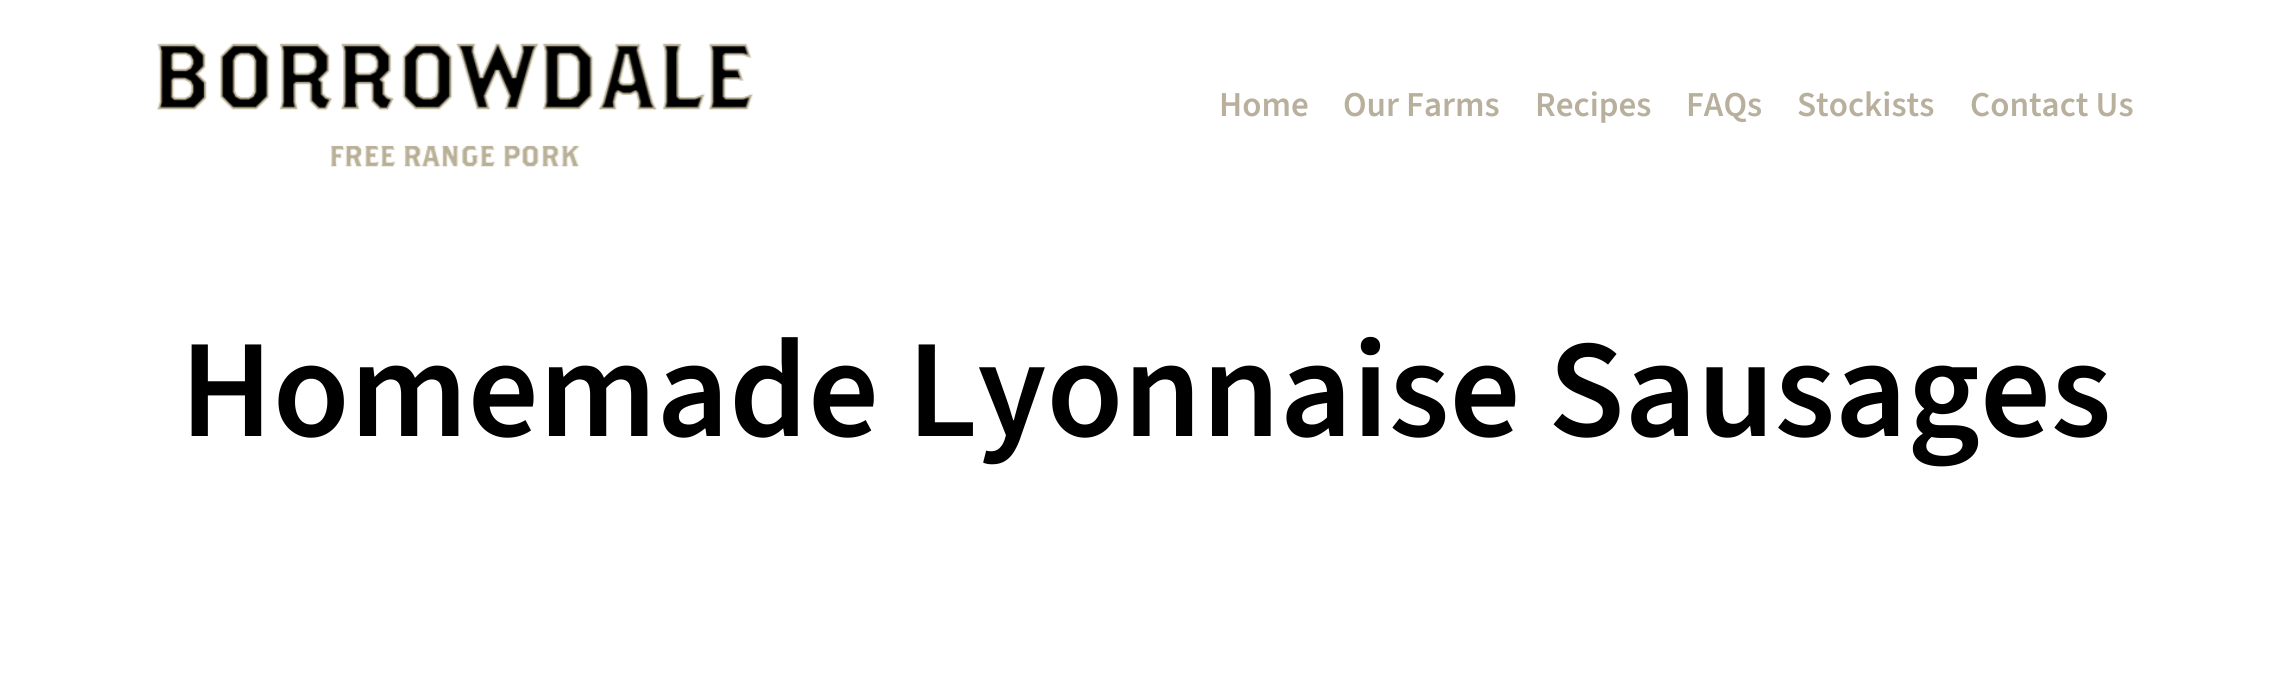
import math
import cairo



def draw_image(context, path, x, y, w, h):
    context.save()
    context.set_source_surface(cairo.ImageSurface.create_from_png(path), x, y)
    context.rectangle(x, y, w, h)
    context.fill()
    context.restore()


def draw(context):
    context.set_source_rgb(1, 1, 1)
    context.paint()
    draw_image(context, "images/1.png", 157, 43, 596, 124)
    context.select_font_face("Source Sans 3 SemiBold")
    context.set_font_size(35)
    context.set_source_rgb(184 / 255, 176 / 255, 157 / 255)
    context.move_to(1219, 116)
    context.show_text("Home")
    context.move_to(1343, 116)
    context.show_text("Our Farms")
    context.move_to(1535, 116)
    context.show_text("Recipes")
    context.move_to(1686, 116)
    context.show_text("FAQs")
    context.move_to(1797, 116)
    context.show_text("Stockists")
    context.move_to(1970, 116)
    context.show_text("Contact Us")
    context.set_font_size(140)
    context.set_source_rgb(0, 0, 0)
    context.move_to(180, 436)
    context.show_text("Homemade Lyonnaise Sausages")


surface = cairo.ImageSurface(cairo.Format.RGB24, 2290, 675)
context = cairo.Context(surface)
options = cairo.FontOptions()
options.set_hint_metrics(cairo.HintMetrics.OFF)
options.set_hint_style(cairo.HintStyle.NONE)
context.set_font_options(options)
context.set_miter_limit(4)
draw(context)
surface.write_to_png("out.png")
